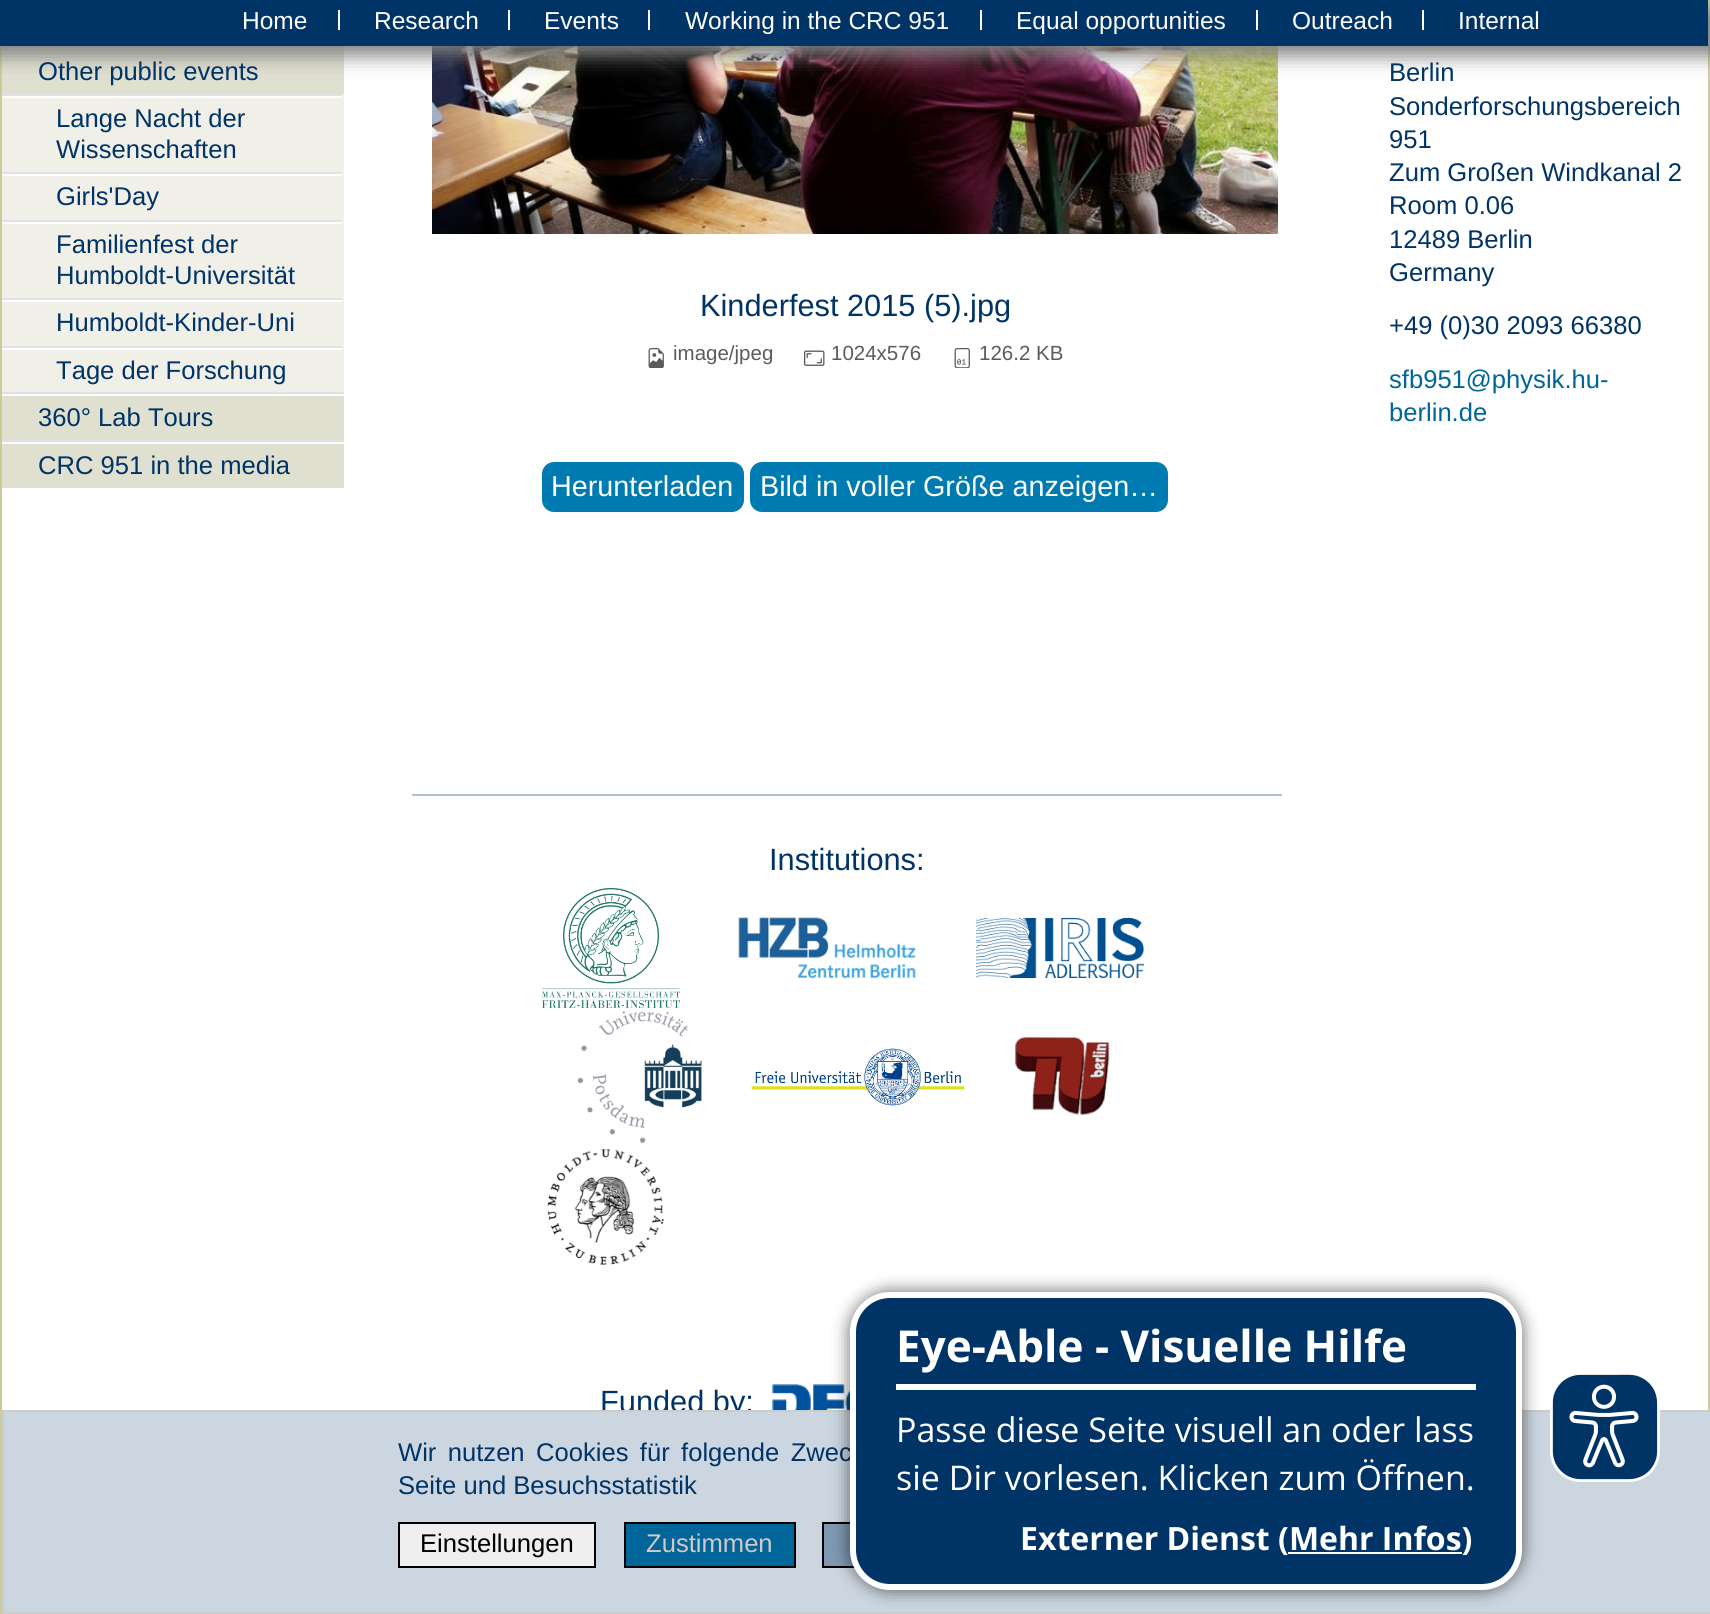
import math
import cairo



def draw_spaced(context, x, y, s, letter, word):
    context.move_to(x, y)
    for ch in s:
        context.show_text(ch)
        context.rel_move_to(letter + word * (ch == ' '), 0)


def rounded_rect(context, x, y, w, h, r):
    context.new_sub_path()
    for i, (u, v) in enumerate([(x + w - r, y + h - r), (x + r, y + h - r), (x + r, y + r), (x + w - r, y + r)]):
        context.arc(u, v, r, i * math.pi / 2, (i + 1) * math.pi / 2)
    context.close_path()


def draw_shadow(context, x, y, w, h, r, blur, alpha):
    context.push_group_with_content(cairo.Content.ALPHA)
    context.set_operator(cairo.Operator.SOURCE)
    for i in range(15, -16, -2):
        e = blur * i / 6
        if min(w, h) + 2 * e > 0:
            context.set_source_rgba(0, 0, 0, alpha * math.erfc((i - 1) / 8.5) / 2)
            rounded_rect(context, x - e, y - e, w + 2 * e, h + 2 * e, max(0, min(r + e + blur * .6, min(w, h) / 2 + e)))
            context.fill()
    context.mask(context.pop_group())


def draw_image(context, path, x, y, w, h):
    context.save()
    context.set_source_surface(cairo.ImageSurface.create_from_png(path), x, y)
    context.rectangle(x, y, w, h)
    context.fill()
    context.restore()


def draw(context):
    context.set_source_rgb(1, 1, 1)
    context.paint()
    context.set_source_rgb(204 / 255, 204 / 255, 153 / 255)
    context.rectangle(1708, 0, 2, 1410)
    context.fill()
    context.rectangle(0, 46, 2, 1568)
    context.fill()
    context.set_source_rgb(224 / 255, 224 / 255, 209 / 255)
    context.rectangle(2, 46, 342, 48)
    context.fill()
    context.set_source_rgb(240 / 255, 240 / 255, 232 / 255)
    context.rectangle(2, 98, 340, 74)
    context.fill()
    context.set_source_rgb(222 / 255, 226 / 255, 230 / 255)
    context.rectangle(2, 94, 342, 2)
    context.fill()
    context.set_source_rgb(240 / 255, 240 / 255, 232 / 255)
    context.rectangle(342, 94, 2, 78)
    context.fill()
    context.rectangle(2, 176, 340, 44)
    context.fill()
    context.set_source_rgb(222 / 255, 226 / 255, 230 / 255)
    context.rectangle(2, 172, 342, 2)
    context.fill()
    context.set_source_rgb(240 / 255, 240 / 255, 232 / 255)
    context.rectangle(342, 172, 2, 48)
    context.fill()
    context.rectangle(2, 224, 340, 74)
    context.fill()
    context.set_source_rgb(222 / 255, 226 / 255, 230 / 255)
    context.rectangle(2, 220, 342, 2)
    context.fill()
    context.set_source_rgb(240 / 255, 240 / 255, 232 / 255)
    context.rectangle(342, 220, 2, 78)
    context.fill()
    context.rectangle(2, 302, 340, 44)
    context.fill()
    context.set_source_rgb(222 / 255, 226 / 255, 230 / 255)
    context.rectangle(2, 298, 342, 2)
    context.fill()
    context.set_source_rgb(240 / 255, 240 / 255, 232 / 255)
    context.rectangle(342, 298, 2, 48)
    context.fill()
    context.rectangle(2, 350, 340, 42)
    context.fill()
    context.set_source_rgb(222 / 255, 226 / 255, 230 / 255)
    context.rectangle(2, 346, 342, 2)
    context.fill()
    context.set_source_rgb(240 / 255, 240 / 255, 232 / 255)
    context.rectangle(342, 346, 2, 46)
    context.fill()
    context.set_source_rgb(224 / 255, 224 / 255, 209 / 255)
    context.rectangle(2, 396, 342, 44)
    context.fill()
    context.set_source_rgb(222 / 255, 226 / 255, 230 / 255)
    context.rectangle(2, 392, 342, 2)
    context.fill()
    context.set_source_rgb(224 / 255, 224 / 255, 209 / 255)
    context.rectangle(2, 444, 342, 44)
    context.fill()
    context.set_source_rgb(222 / 255, 226 / 255, 230 / 255)
    context.rectangle(2, 440, 342, 2)
    context.fill()
    draw_image(context, "images/1.png", 432, 46, 846, 188)
    context.set_source_rgb(128 / 255, 128 / 255, 128 / 255)
    draw_shadow(context, -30, 10, 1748, 46, 0, 10, 1)
    context.set_source_rgb(0, 51 / 255, 102 / 255)
    context.rectangle(0, 0, 1708, 46)
    context.fill()
    context.set_source_rgb(1, 1, 1)
    context.rectangle(338, 10, 2, 20)
    context.fill()
    context.rectangle(508, 10, 2, 20)
    context.fill()
    context.rectangle(648, 10, 2, 20)
    context.fill()
    context.rectangle(980, 10, 2, 20)
    context.fill()
    context.rectangle(1256, 10, 2, 20)
    context.fill()
    context.rectangle(1422, 10, 2, 20)
    context.fill()
    draw_image(context, "images/2.png", 648, 348, 16, 20)
    draw_image(context, "images/3.png", 804, 350, 21, 16)
    draw_image(context, "images/4.png", 954, 348, 16, 20)
    context.set_source_rgb(0, 123 / 255, 177 / 255)
    rounded_rect(context, 542, 462, 202, 50, 12)
    context.fill()
    rounded_rect(context, 750, 462, 418, 50, 12)
    context.fill()
    context.set_source_rgb(178 / 255, 193 / 255, 209 / 255)
    context.rectangle(412, 794, 870, 2)
    context.fill()
    draw_image(context, "images/5.png", 542, 888, 138, 120)
    draw_image(context, "images/6.png", 738, 917, 178, 62)
    draw_image(context, "images/7.png", 976, 918, 168, 60)
    draw_image(context, "images/8.png", 577, 1011, 125, 133)
    draw_image(context, "images/9.png", 751, 1048, 214, 58)
    draw_image(context, "images/10.png", 1014, 1036, 96, 79)
    draw_image(context, "images/11.png", 547, 1148, 118, 117)
    draw_image(context, "images/12.png", 772, 1384, 78, 26)
    context.select_font_face("Liberation Sans")
    context.set_font_size(25.6)
    context.set_source_rgb(0, 51 / 255, 102 / 255)
    context.move_to(38, 80)
    context.show_text("Other public events")
    context.move_to(56, 127)
    context.show_text("Lange Nacht der")
    context.move_to(56, 158)
    context.show_text("Wissenschaften")
    context.move_to(56, 205)
    context.show_text("Girls'Day")
    context.move_to(56, 253)
    context.show_text("Familienfest der")
    context.move_to(56, 284)
    context.show_text("Humboldt-Universität")
    context.move_to(56, 331)
    context.show_text("Humboldt-Kinder-Uni")
    context.move_to(56, 379)
    context.show_text("Tage der Forschung")
    context.move_to(38, 426)
    context.show_text("360° Lab Tours")
    context.move_to(38, 474)
    context.show_text("CRC 951 in the media")
    context.set_font_size(24.5)
    context.set_source_rgb(1, 1, 1)
    context.move_to(242, 29)
    context.show_text("Home")
    context.move_to(374, 29)
    context.show_text("Research")
    context.move_to(544, 29)
    context.show_text("Events")
    context.move_to(685, 29)
    context.show_text("Working in the CRC 951")
    context.move_to(1016, 29)
    context.show_text("Equal opportunities")
    context.move_to(1292, 29)
    context.show_text("Outreach")
    context.move_to(1458, 29)
    context.show_text("Internal")
    context.set_font_size(25.6)
    context.set_source_rgb(0, 51 / 255, 102 / 255)
    context.move_to(1389, 81)
    context.show_text("Berlin")
    context.move_to(1389, 115)
    context.show_text("Sonderforschungsbereich")
    context.move_to(1389, 148)
    context.show_text("951")
    context.move_to(1389, 181)
    context.show_text("Zum Großen Windkanal 2")
    context.move_to(1389, 214)
    context.show_text("Room 0.06")
    context.move_to(1389, 248)
    context.show_text("12489 Berlin")
    context.move_to(1389, 281)
    context.show_text("Germany")
    context.move_to(1389, 334)
    context.show_text("+49 (0)30 2093 66380")
    context.set_source_rgb(0, 102 / 255, 153 / 255)
    context.move_to(1389, 388)
    context.show_text("sfb951@physik.hu-")
    context.move_to(1389, 421)
    context.show_text("berlin.de")
    context.set_font_size(30.75)
    context.set_source_rgb(0, 51 / 255, 102 / 255)
    context.move_to(700, 316)
    context.show_text("Kinderfest 2015 (5).jpg")
    context.set_font_size(20.5)
    context.set_source_rgb(89 / 255, 92 / 255, 95 / 255)
    context.move_to(673, 360)
    context.show_text("image/jpeg")
    context.move_to(831, 360)
    context.show_text("1024x576")
    context.move_to(979, 360)
    context.show_text("126.2 KB")
    context.set_font_size(28.75)
    context.set_source_rgb(1, 1, 1)
    context.move_to(551, 496)
    context.show_text("Herunterladen")
    context.move_to(760, 496)
    context.show_text("Bild in voller Größe anzeigen…")
    context.set_font_size(30.75)
    context.set_source_rgb(0, 51 / 255, 102 / 255)
    context.move_to(769, 870)
    context.show_text("Institutions:")
    context.move_to(600, 1412)
    context.show_text("Funded by:")
    context.set_source_rgb(204 / 255, 214 / 255, 224 / 255)
    context.rectangle(3, 1411, 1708, 202)
    context.fill_preserve()
    context.set_source_rgb(204 / 255, 204 / 255, 204 / 255)
    context.stroke()
    context.set_font_size(25.6)
    context.set_source_rgb(0, 51 / 255, 102 / 255)
    draw_spaced(context, 398, 1461, "Wir nutzen Cookies für folgende Zwec", 0, 4.25)
    context.move_to(398, 1494)
    context.show_text("Seite und Besuchsstatistik")
    context.set_source_rgb(239 / 255, 239 / 255, 239 / 255)
    context.rectangle(399, 1523, 196, 44)
    context.fill_preserve()
    context.set_source_rgb(0, 0, 0)
    context.stroke()
    context.move_to(420, 1552)
    context.show_text("Einstellungen")
    context.set_source_rgb(0, 102 / 255, 153 / 255)
    context.rectangle(625, 1523, 170, 44)
    context.fill_preserve()
    context.set_source_rgb(0, 0, 0)
    context.stroke()
    context.set_source_rgb(213 / 255, 199 / 255, 199 / 255)
    context.move_to(646, 1552)
    context.show_text("Zustimmen")
    context.set_source_rgb(128 / 255, 153 / 255, 178 / 255)
    context.rectangle(824, 1524, 30, 42)
    context.fill()
    context.rectangle(823, 1523, 152, 44)
    context.set_source_rgb(0, 0, 0)
    context.stroke()
    context.set_source_rgb(0, 0, 0)
    draw_shadow(context, 848, 1290, 676, 302, 42, 8, 0.5)
    context.set_source_rgb(0, 51 / 255, 102 / 255)
    rounded_rect(context, 853, 1295, 666, 292, 37)
    context.fill_preserve()
    context.set_source_rgb(1, 1, 1)
    context.set_line_width(6)
    context.stroke()
    context.rectangle(896, 1384, 580, 6)
    context.fill()
    context.select_font_face("Open Sans", cairo.FontSlant.NORMAL, cairo.FontWeight.BOLD)
    context.set_font_size(44)
    context.move_to(896, 1362)
    context.show_text("Eye-Able - Visuelle Hilfe")
    context.select_font_face("Open Sans")
    context.set_font_size(34)
    context.move_to(896, 1442)
    context.show_text("Passe diese Seite visuell an oder lass")
    context.move_to(896, 1490)
    context.show_text("sie Dir vorlesen. Klicken zum Öffnen.")
    context.select_font_face("Open Sans", cairo.FontSlant.NORMAL, cairo.FontWeight.BOLD)
    context.set_font_size(32)
    context.move_to(1020, 1550)
    context.show_text("Externer Dienst (Mehr Infos)")
    context.rectangle(1288, 1552, 174, 2)
    context.fill()
    draw_image(context, "images/13.png", 1550, 1374, 110, 108)


surface = cairo.ImageSurface(cairo.Format.RGB24, 1710, 1614)
context = cairo.Context(surface)
options = cairo.FontOptions()
options.set_hint_metrics(cairo.HintMetrics.OFF)
options.set_hint_style(cairo.HintStyle.NONE)
context.set_font_options(options)
context.set_miter_limit(4)
draw(context)
surface.write_to_png("out.png")
